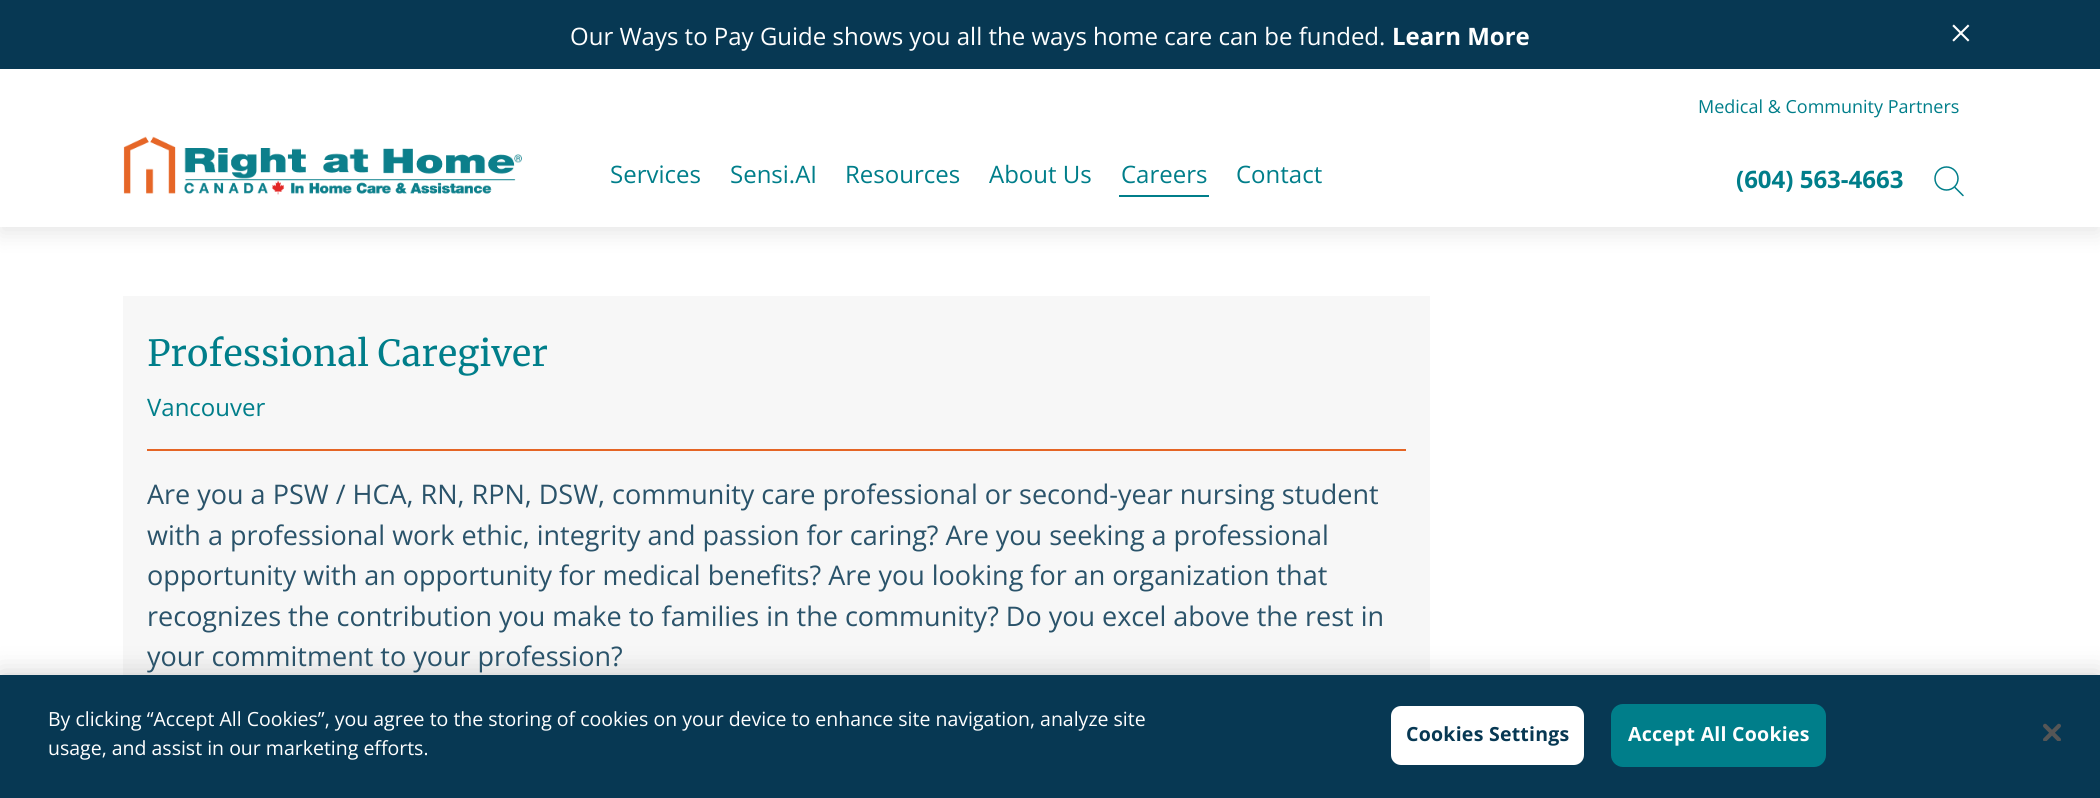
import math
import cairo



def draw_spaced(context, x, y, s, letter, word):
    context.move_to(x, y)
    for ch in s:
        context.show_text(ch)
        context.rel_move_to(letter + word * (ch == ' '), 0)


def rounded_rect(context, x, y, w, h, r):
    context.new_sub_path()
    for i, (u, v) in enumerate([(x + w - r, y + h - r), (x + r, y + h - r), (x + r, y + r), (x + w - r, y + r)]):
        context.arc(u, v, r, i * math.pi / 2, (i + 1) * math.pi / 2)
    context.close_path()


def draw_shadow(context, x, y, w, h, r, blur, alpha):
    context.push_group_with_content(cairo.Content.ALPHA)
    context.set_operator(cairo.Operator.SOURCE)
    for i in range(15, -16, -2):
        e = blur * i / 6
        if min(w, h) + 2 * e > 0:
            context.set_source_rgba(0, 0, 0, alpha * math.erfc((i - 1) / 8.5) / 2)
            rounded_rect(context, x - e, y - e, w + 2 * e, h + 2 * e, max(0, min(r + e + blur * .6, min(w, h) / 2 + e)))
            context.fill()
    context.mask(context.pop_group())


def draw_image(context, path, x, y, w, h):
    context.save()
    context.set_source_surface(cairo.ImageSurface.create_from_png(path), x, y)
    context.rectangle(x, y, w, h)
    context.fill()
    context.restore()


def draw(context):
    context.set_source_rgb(1, 1, 1)
    context.paint()
    context.set_source_rgb(0, 0, 0)
    draw_shadow(context, 0, 6, 2100, 227, 0, 11, 0.1)
    context.set_source_rgb(1, 1, 1)
    context.rectangle(0, 69, 2100, 158)
    context.fill()
    context.set_source_rgb(7 / 255, 56 / 255, 83 / 255)
    context.rectangle(0, 0, 2100, 69)
    context.fill()
    draw_image(context, "images/1.png", 123, 136, 399, 59)
    context.set_source_rgb(0, 126 / 255, 138 / 255)
    context.rectangle(1119, 195, 90, 2)
    context.fill()
    context.arc(1946.5, 178.5, 11.5, 0, 2 * math.pi)
    context.set_line_width(1.5)
    context.stroke()
    context.new_path()
    context.move_to(1955, 187.5)
    context.line_to(1963, 195.5)
    context.set_line_cap(cairo.LineCap.ROUND)
    context.stroke()
    context.set_source_rgb(247 / 255, 247 / 255, 247 / 255)
    context.rectangle(123, 296, 1307, 379)
    context.fill()
    context.set_source_rgb(229 / 255, 101 / 255, 37 / 255)
    context.rectangle(147, 449, 1259, 2)
    context.fill()
    context.set_source_rgb(0, 0, 0)
    draw_shadow(context, 0, 675, 2100, 123, 0, 13.5, 0.2)
    context.set_source_rgb(7 / 255, 56 / 255, 83 / 255)
    context.rectangle(0, 675, 2100, 123)
    context.fill()
    context.set_source_rgb(1, 1, 1)
    rounded_rect(context, 1390, 705, 195, 61, 11)
    context.fill_preserve()
    context.set_source_rgb(7 / 255, 56 / 255, 83 / 255)
    context.set_line_width(2)
    context.set_line_cap(cairo.LineCap.BUTT)
    context.stroke()
    context.set_source_rgb(0, 126 / 255, 138 / 255)
    rounded_rect(context, 1612, 705, 213, 61, 11)
    context.fill_preserve()
    context.stroke()
    draw_image(context, "images/2.png", 2043, 723, 18, 18)
    context.select_font_face("Open Sans")
    context.set_font_size(24)
    context.set_source_rgb(1, 1, 1)
    context.move_to(570, 45)
    context.show_text("Our Ways to Pay Guide shows you all the ways home care can be funded.")
    context.select_font_face("Open Sans", cairo.FontSlant.NORMAL, cairo.FontWeight.BOLD)
    context.move_to(1392, 45)
    context.show_text("Learn More")
    context.select_font_face("Liberation Serif")
    context.set_font_size(42)
    context.move_to(1949, 47)
    context.show_text("×")
    context.select_font_face("Open Sans")
    context.set_font_size(18)
    context.set_source_rgb(0, 126 / 255, 138 / 255)
    context.move_to(1698, 113)
    context.show_text("Medical & Community Partners")
    context.set_font_size(24)
    context.move_to(610, 183)
    context.show_text("Services")
    context.move_to(730, 183)
    context.show_text("Sensi.AI")
    context.move_to(845, 183)
    context.show_text("Resources")
    context.move_to(989, 183)
    context.show_text("About Us")
    context.move_to(1121, 183)
    context.show_text("Careers")
    context.move_to(1236, 183)
    context.show_text("Contact")
    context.select_font_face("Open Sans", cairo.FontSlant.NORMAL, cairo.FontWeight.BOLD)
    context.move_to(1736, 188)
    context.show_text("(604) 563-4663")
    context.select_font_face("Merriweather")
    context.set_font_size(36)
    context.move_to(147, 366)
    context.show_text("Professional Caregiver")
    context.select_font_face("Open Sans")
    context.set_font_size(24)
    context.move_to(147, 416)
    context.show_text("Vancouver")
    context.set_font_size(27)
    context.set_source_rgb(42 / 255, 83 / 255, 106 / 255)
    context.move_to(147, 504)
    context.show_text("Are you a PSW / HCA, RN, RPN, DSW, community care professional or second-year nursing student")
    context.move_to(147, 545)
    context.show_text("with a professional work ethic, integrity and passion for caring? Are you seeking a professional")
    context.move_to(147, 585)
    context.show_text("opportunity with an opportunity for medical benefits? Are you looking for an organization that")
    context.move_to(147, 626)
    context.show_text("recognizes the contribution you make to families in the community? Do you excel above the rest in")
    context.move_to(147, 666)
    context.show_text("your commitment to your profession?")
    context.set_font_size(19.5)
    context.set_source_rgb(1, 1, 1)
    context.move_to(48, 726)
    context.show_text("By clicking “Accept All Cookies”, you agree to the storing of cookies on your device to enhance site navigation, analyze site")
    context.move_to(48, 755)
    context.show_text("usage, and assist in our marketing efforts.")
    context.select_font_face("Open Sans", cairo.FontSlant.NORMAL, cairo.FontWeight.BOLD)
    context.set_source_rgb(7 / 255, 56 / 255, 83 / 255)
    draw_spaced(context, 1406, 741, "Cookies Settings", 0.25, 0)
    context.set_source_rgb(1, 1, 1)
    draw_spaced(context, 1628, 741, "Accept All Cookies", 0.25, 0)


surface = cairo.ImageSurface(cairo.Format.RGB24, 2100, 798)
context = cairo.Context(surface)
options = cairo.FontOptions()
options.set_hint_metrics(cairo.HintMetrics.OFF)
options.set_hint_style(cairo.HintStyle.NONE)
context.set_font_options(options)
context.set_miter_limit(4)
draw(context)
surface.write_to_png("out.png")
